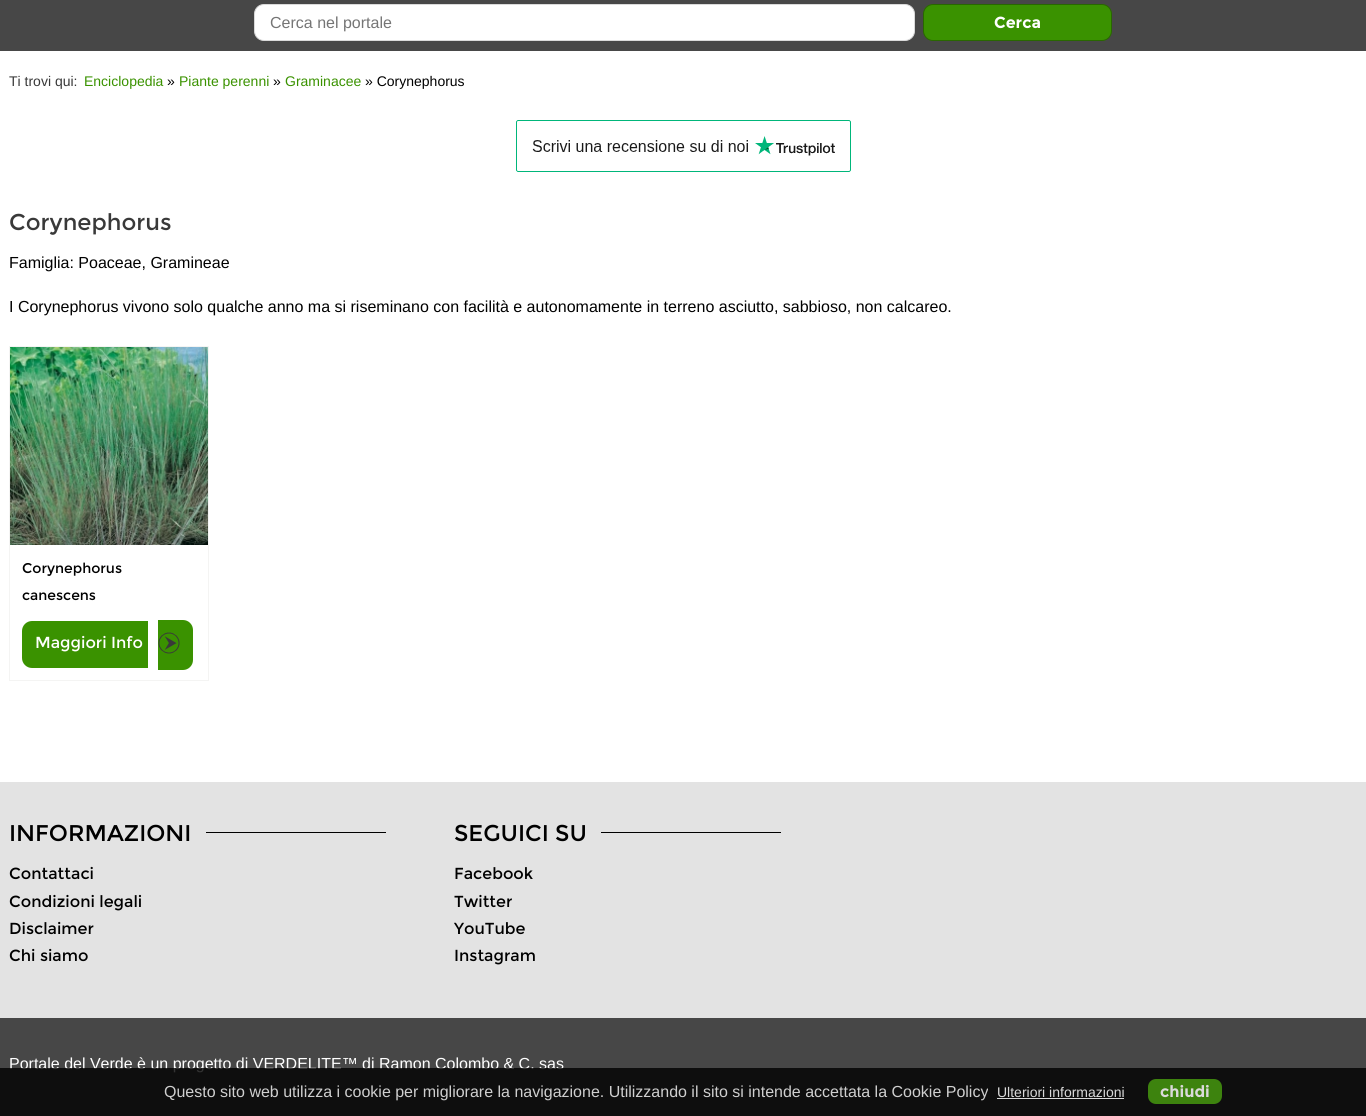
import math
import cairo



def rounded_rect(context, x, y, w, h, r):
    context.new_sub_path()
    for i, (u, v) in enumerate([(x + w - r, y + h - r), (x + r, y + h - r), (x + r, y + r), (x + w - r, y + r)]):
        context.arc(u, v, r, i * math.pi / 2, (i + 1) * math.pi / 2)
    context.close_path()


def draw_image(context, path, x, y, w, h):
    context.save()
    context.set_source_surface(cairo.ImageSurface.create_from_png(path), x, y)
    context.rectangle(x, y, w, h)
    context.fill()
    context.restore()


def draw(context):
    context.set_source_rgb(1, 1, 1)
    context.paint()
    context.set_source_rgb(71 / 255, 71 / 255, 71 / 255)
    context.rectangle(0, 0, 1366, 51)
    context.fill()
    context.set_source_rgb(1, 1, 1)
    rounded_rect(context, 254.5, 4.5, 660, 36, 9.5)
    context.fill_preserve()
    context.set_source_rgb(218 / 255, 218 / 255, 218 / 255)
    context.set_line_width(1)
    context.stroke()
    context.set_source_rgb(58 / 255, 146 / 255, 0)
    rounded_rect(context, 923.5, 4.5, 188, 36, 9.5)
    context.fill_preserve()
    context.set_source_rgb(41 / 255, 103 / 255, 0)
    context.stroke()
    draw_image(context, "images/1.png", 516, 120, 335, 52)
    context.rectangle(9.5, 346.5, 199, 334)
    context.set_source_rgb(244 / 255, 244 / 255, 243 / 255)
    context.stroke()
    draw_image(context, "images/2.png", 10, 347, 198, 198)
    context.set_source_rgb(58 / 255, 146 / 255, 0)
    context.new_path()
    context.move_to(32, 621)
    context.line_to(148, 621)
    context.line_to(148, 668)
    context.line_to(32, 668)
    context.curve_to(26.5, 668, 22, 663.5, 22, 658)
    context.line_to(22, 631)
    context.curve_to(22, 625.5, 26.5, 621, 32, 621)
    context.close_path()
    context.fill()
    context.new_path()
    context.move_to(158, 620)
    context.line_to(183, 620)
    context.curve_to(188.5, 620, 193, 624.5, 193, 630)
    context.line_to(193, 660)
    context.curve_to(193, 665.5, 188.5, 670, 183, 670)
    context.line_to(158, 670)
    context.close_path()
    context.fill()
    draw_image(context, "images/3.png", 158, 632, 22, 22)
    context.set_source_rgb(227 / 255, 227 / 255, 227 / 255)
    context.rectangle(0, 782, 1366, 236)
    context.fill()
    context.set_source_rgb(0, 0, 0)
    context.rectangle(206, 832, 180, 1)
    context.fill()
    context.rectangle(601, 832, 180, 1)
    context.fill()
    context.set_source_rgb(71 / 255, 71 / 255, 71 / 255)
    context.rectangle(0, 1018, 1366, 98)
    context.fill()
    context.select_font_face("Liberation Sans")
    context.set_font_size(16)
    context.set_source_rgb(117 / 255, 117 / 255, 117 / 255)
    context.move_to(270, 28)
    context.show_text("Cerca nel portale")
    context.select_font_face("Montserrat", cairo.FontSlant.NORMAL, cairo.FontWeight.BOLD)
    context.set_source_rgb(1, 1, 1)
    context.move_to(994, 28)
    context.show_text("Cerca")
    context.select_font_face("Liberation Sans")
    context.set_font_size(14)
    context.set_source_rgb(57 / 255, 57 / 255, 57 / 255)
    context.move_to(9, 86)
    context.show_text("Ti trovi qui:")
    context.set_source_rgb(58 / 255, 146 / 255, 0)
    context.move_to(84, 86)
    context.show_text("Enciclopedia")
    context.set_source_rgb(0, 0, 0)
    context.move_to(167, 86)
    context.show_text("»")
    context.set_source_rgb(58 / 255, 146 / 255, 0)
    context.move_to(179, 86)
    context.show_text("Piante perenni")
    context.set_source_rgb(0, 0, 0)
    context.move_to(273, 86)
    context.show_text("»")
    context.set_source_rgb(58 / 255, 146 / 255, 0)
    context.move_to(285, 86)
    context.show_text("Graminacee")
    context.set_source_rgb(0, 0, 0)
    context.move_to(365, 86)
    context.show_text("» Corynephorus")
    context.select_font_face("Montserrat")
    context.set_font_size(22.75)
    context.set_source_rgb(57 / 255, 57 / 255, 57 / 255)
    context.move_to(9, 230)
    context.show_text("Corynephorus")
    context.select_font_face("Liberation Sans")
    context.set_font_size(16)
    context.set_source_rgb(0, 0, 0)
    context.move_to(9, 268)
    context.show_text("Famiglia: Poaceae, Gramineae")
    context.move_to(9, 312)
    context.show_text("I Corynephorus vivono solo qualche anno ma si riseminano con facilità e autonomamente in terreno asciutto, sabbioso, non calcareo.")
    context.select_font_face("Montserrat")
    context.set_font_size(14)
    context.move_to(22, 573)
    context.show_text("Corynephorus")
    context.move_to(22, 600)
    context.show_text("canescens")
    context.set_font_size(16)
    context.set_source_rgb(1, 1, 1)
    context.move_to(35, 648)
    context.show_text("Maggiori Info")
    context.set_font_size(22.75)
    context.set_source_rgb(0, 0, 0)
    context.move_to(9, 841)
    context.show_text("INFORMAZIONI")
    context.set_font_size(16)
    context.move_to(9, 879)
    context.show_text("Contattaci")
    context.move_to(9, 907)
    context.show_text("Condizioni legali")
    context.move_to(9, 934)
    context.show_text("Disclaimer")
    context.move_to(9, 961)
    context.show_text("Chi siamo")
    context.set_font_size(22.75)
    context.move_to(454, 841)
    context.show_text("SEGUICI SU")
    context.set_font_size(16)
    context.move_to(454, 879)
    context.show_text("Facebook")
    context.move_to(454, 907)
    context.show_text("Twitter")
    context.move_to(454, 934)
    context.show_text("YouTube")
    context.move_to(454, 961)
    context.show_text("Instagram")
    context.select_font_face("Liberation Sans")
    context.set_source_rgb(1, 1, 1)
    context.move_to(9, 1069)
    context.show_text("Portale del Verde è un progetto di VERDELITE™ di Ramon Colombo & C. sas")
    context.set_source_rgba(0, 0, 0, 0.8)
    context.rectangle(0, 1068, 1366, 48)
    context.fill()
    context.set_source_rgb(207 / 255, 207 / 255, 207 / 255)
    context.move_to(164, 1097)
    context.show_text("Questo sito web utilizza i cookie per migliorare la navigazione. Utilizzando il sito si intende accettata la Cookie Policy")
    context.set_font_size(14)
    context.set_source_rgb(218 / 255, 218 / 255, 218 / 255)
    context.move_to(997, 1097)
    context.show_text("Ulteriori informazioni")
    context.rectangle(997, 1098, 127, 1)
    context.fill()
    context.set_source_rgb(61 / 255, 131 / 255, 14 / 255)
    rounded_rect(context, 1148, 1079, 74, 25, 8)
    context.fill()
    context.select_font_face("Montserrat", cairo.FontSlant.NORMAL, cairo.FontWeight.BOLD)
    context.set_font_size(16)
    context.set_source_rgb(218 / 255, 218 / 255, 218 / 255)
    context.move_to(1160, 1097)
    context.show_text("chiudi")


surface = cairo.ImageSurface(cairo.Format.RGB24, 1366, 1116)
context = cairo.Context(surface)
options = cairo.FontOptions()
options.set_hint_metrics(cairo.HintMetrics.OFF)
options.set_hint_style(cairo.HintStyle.NONE)
context.set_font_options(options)
context.set_miter_limit(4)
draw(context)
surface.write_to_png("out.png")
